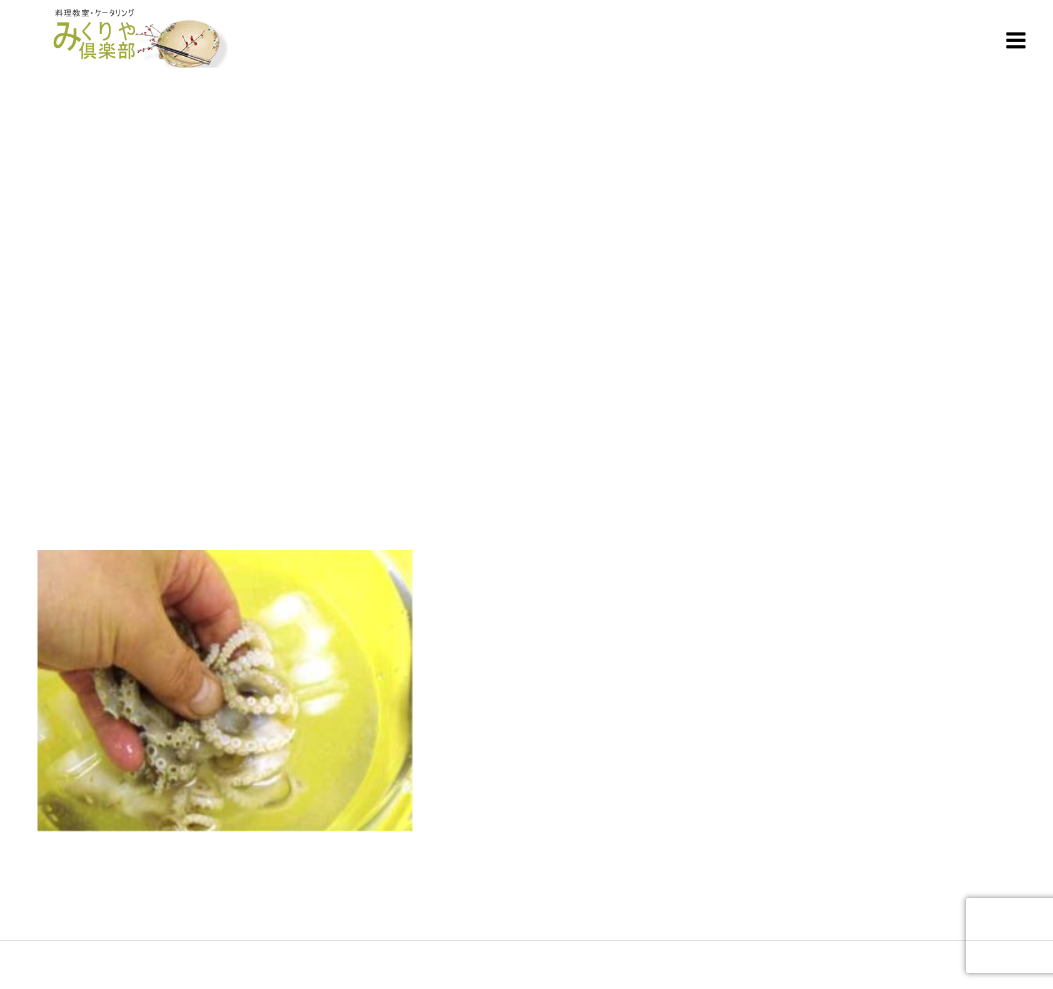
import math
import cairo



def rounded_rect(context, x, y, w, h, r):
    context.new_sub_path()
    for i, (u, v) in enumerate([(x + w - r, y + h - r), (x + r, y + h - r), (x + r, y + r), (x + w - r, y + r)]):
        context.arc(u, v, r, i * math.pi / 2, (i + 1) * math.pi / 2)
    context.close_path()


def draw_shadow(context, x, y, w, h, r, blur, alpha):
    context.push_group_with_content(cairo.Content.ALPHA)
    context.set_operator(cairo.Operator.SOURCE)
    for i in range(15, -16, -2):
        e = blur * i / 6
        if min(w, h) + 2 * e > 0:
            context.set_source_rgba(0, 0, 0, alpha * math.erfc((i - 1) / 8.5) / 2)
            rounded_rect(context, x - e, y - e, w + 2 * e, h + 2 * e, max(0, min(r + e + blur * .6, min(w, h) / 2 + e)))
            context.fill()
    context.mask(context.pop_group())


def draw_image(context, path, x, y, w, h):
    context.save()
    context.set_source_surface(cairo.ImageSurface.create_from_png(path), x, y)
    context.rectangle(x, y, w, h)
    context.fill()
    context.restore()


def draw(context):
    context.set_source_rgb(1, 1, 1)
    context.paint()
    draw_image(context, "images/1.png", 53, 8, 175, 60)
    draw_image(context, "images/2.png", 1006, 32, 20, 17)
    draw_image(context, "images/3.png", 37, 550, 376, 282)
    context.set_source_rgb(221 / 255, 221 / 255, 221 / 255)
    context.rectangle(0, 940, 1053, 1)
    context.fill()
    context.save()
    context.set_fill_rule(cairo.FillRule.EVEN_ODD)
    context.new_path()
    context.move_to(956, 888)
    context.line_to(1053, 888)
    context.line_to(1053, 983)
    context.line_to(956, 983)
    context.close_path()
    context.move_to(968.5, 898)
    context.line_to(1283.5, 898)
    context.curve_to(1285, 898, 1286, 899, 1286, 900.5)
    context.line_to(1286, 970.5)
    context.curve_to(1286, 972, 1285, 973, 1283.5, 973)
    context.line_to(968.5, 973)
    context.curve_to(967, 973, 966, 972, 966, 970.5)
    context.line_to(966, 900.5)
    context.curve_to(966, 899, 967, 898, 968.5, 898)
    context.close_path()
    context.clip()
    context.set_source_rgb(128 / 255, 128 / 255, 128 / 255)
    draw_shadow(context, 966, 898, 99, 75, 2.5, 3, 1)
    context.restore()


surface = cairo.ImageSurface(cairo.Format.RGB24, 1053, 989)
context = cairo.Context(surface)
options = cairo.FontOptions()
options.set_hint_metrics(cairo.HintMetrics.OFF)
options.set_hint_style(cairo.HintStyle.NONE)
context.set_font_options(options)
context.set_miter_limit(4)
draw(context)
surface.write_to_png("out.png")
